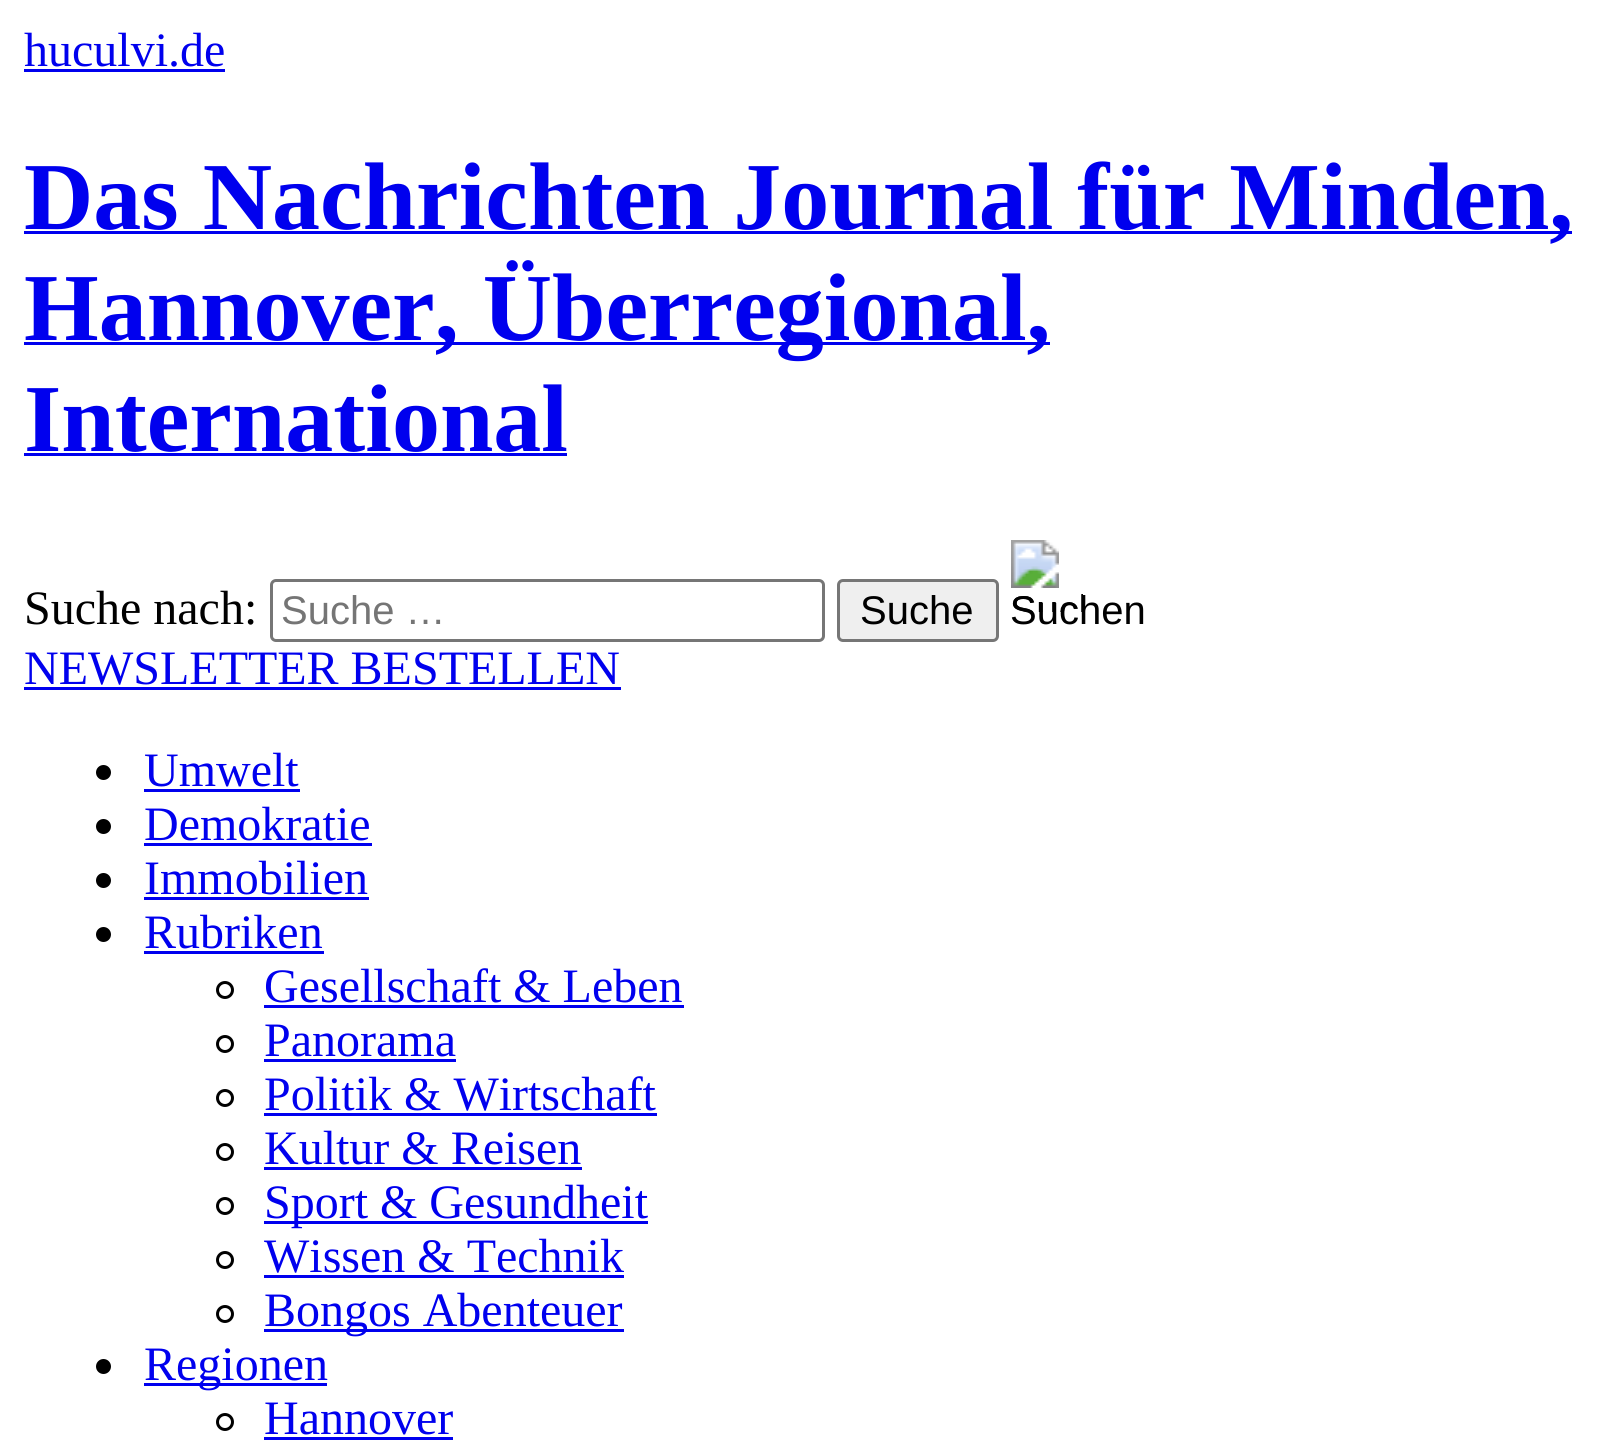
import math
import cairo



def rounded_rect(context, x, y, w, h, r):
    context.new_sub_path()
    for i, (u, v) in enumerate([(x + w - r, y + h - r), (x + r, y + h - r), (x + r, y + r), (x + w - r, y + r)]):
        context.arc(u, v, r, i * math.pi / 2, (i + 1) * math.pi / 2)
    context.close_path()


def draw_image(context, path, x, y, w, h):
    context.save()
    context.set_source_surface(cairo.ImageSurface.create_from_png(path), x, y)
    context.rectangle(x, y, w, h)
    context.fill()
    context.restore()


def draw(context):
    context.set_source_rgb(1, 1, 1)
    context.paint()
    context.set_source_rgb(0, 0, 238 / 255)
    context.rectangle(24, 69, 201, 3)
    context.fill()
    context.rectangle(24, 231, 1548, 3)
    context.fill()
    context.rectangle(24, 342, 1026, 3)
    context.fill()
    context.rectangle(24, 453, 543, 3)
    context.fill()
    rounded_rect(context, 271.5, 580.5, 552, 60, 4.5)
    context.set_source_rgb(118 / 255, 118 / 255, 118 / 255)
    context.set_line_width(3)
    context.stroke()
    context.set_source_rgb(239 / 255, 239 / 255, 239 / 255)
    rounded_rect(context, 838.5, 580.5, 159, 60, 4.5)
    context.fill_preserve()
    context.set_source_rgb(118 / 255, 118 / 255, 118 / 255)
    context.stroke()
    draw_image(context, "images/1.png", 1011, 540, 72, 72)
    context.set_source_rgb(0, 0, 238 / 255)
    context.rectangle(24, 687, 597, 3)
    context.fill()
    context.set_source_rgb(0, 0, 0)
    context.arc(103.5, 772.5, 7.5, 0, 2 * math.pi)
    context.fill()
    context.set_source_rgb(0, 0, 238 / 255)
    context.rectangle(144, 789, 156, 3)
    context.fill()
    context.set_source_rgb(0, 0, 0)
    context.arc(103.5, 826.5, 7.5, 0, 2 * math.pi)
    context.fill()
    context.set_source_rgb(0, 0, 238 / 255)
    context.rectangle(144, 843, 228, 3)
    context.fill()
    context.set_source_rgb(0, 0, 0)
    context.arc(103.5, 880.5, 7.5, 0, 2 * math.pi)
    context.fill()
    context.set_source_rgb(0, 0, 238 / 255)
    context.rectangle(144, 897, 225, 3)
    context.fill()
    context.set_source_rgb(0, 0, 0)
    context.arc(103.5, 934.5, 7.5, 0, 2 * math.pi)
    context.fill()
    context.set_source_rgb(0, 0, 238 / 255)
    context.rectangle(144, 951, 180, 3)
    context.fill()
    context.arc(225, 990, 7.5, 0, 2 * math.pi)
    context.set_source_rgb(0, 0, 0)
    context.stroke()
    context.set_source_rgb(0, 0, 238 / 255)
    context.rectangle(264, 1005, 420, 3)
    context.fill()
    context.arc(225, 1044, 7.5, 0, 2 * math.pi)
    context.set_source_rgb(0, 0, 0)
    context.stroke()
    context.set_source_rgb(0, 0, 238 / 255)
    context.rectangle(264, 1059, 192, 3)
    context.fill()
    context.arc(225, 1098, 7.5, 0, 2 * math.pi)
    context.set_source_rgb(0, 0, 0)
    context.stroke()
    context.set_source_rgb(0, 0, 238 / 255)
    context.rectangle(264, 1113, 393, 3)
    context.fill()
    context.arc(225, 1152, 7.5, 0, 2 * math.pi)
    context.set_source_rgb(0, 0, 0)
    context.stroke()
    context.set_source_rgb(0, 0, 238 / 255)
    context.rectangle(264, 1167, 318, 3)
    context.fill()
    context.arc(225, 1206, 7.5, 0, 2 * math.pi)
    context.set_source_rgb(0, 0, 0)
    context.stroke()
    context.set_source_rgb(0, 0, 238 / 255)
    context.rectangle(264, 1221, 384, 3)
    context.fill()
    context.arc(225, 1260, 7.5, 0, 2 * math.pi)
    context.set_source_rgb(0, 0, 0)
    context.stroke()
    context.set_source_rgb(0, 0, 238 / 255)
    context.rectangle(264, 1275, 360, 3)
    context.fill()
    context.arc(225, 1314, 7.5, 0, 2 * math.pi)
    context.set_source_rgb(0, 0, 0)
    context.stroke()
    context.set_source_rgb(0, 0, 238 / 255)
    context.rectangle(264, 1329, 360, 3)
    context.fill()
    context.set_source_rgb(0, 0, 0)
    context.arc(103.5, 1366.5, 7.5, 0, 2 * math.pi)
    context.fill()
    context.set_source_rgb(0, 0, 238 / 255)
    context.rectangle(144, 1383, 183, 3)
    context.fill()
    context.arc(225, 1422, 7.5, 0, 2 * math.pi)
    context.set_source_rgb(0, 0, 0)
    context.stroke()
    context.set_source_rgb(0, 0, 238 / 255)
    context.rectangle(264, 1437, 189, 3)
    context.fill()
    context.select_font_face("Liberation Serif")
    context.set_font_size(48)
    context.move_to(24, 66)
    context.show_text("huculvi.de")
    context.select_font_face("Liberation Serif", cairo.FontSlant.NORMAL, cairo.FontWeight.BOLD)
    context.set_font_size(96)
    context.move_to(24, 229)
    context.show_text("Das Nachrichten Journal für Minden,")
    context.move_to(24, 340)
    context.show_text("Hannover, Überregional,")
    context.move_to(24, 451)
    context.show_text("International")
    context.select_font_face("Liberation Serif")
    context.set_font_size(48)
    context.set_source_rgb(0, 0, 0)
    context.move_to(24, 624)
    context.show_text("Suche nach:")
    context.select_font_face("Liberation Sans")
    context.set_font_size(40)
    context.set_source_rgb(117 / 255, 117 / 255, 117 / 255)
    context.move_to(281, 624)
    context.show_text("Suche …")
    context.set_source_rgb(0, 0, 0)
    context.move_to(860, 624)
    context.show_text("Suche")
    context.move_to(1010, 624)
    context.show_text("Suchen")
    context.select_font_face("Liberation Serif")
    context.set_font_size(48)
    context.set_source_rgb(0, 0, 238 / 255)
    context.move_to(24, 684)
    context.show_text("NEWSLETTER BESTELLEN")
    context.move_to(144, 786)
    context.show_text("Umwelt")
    context.move_to(144, 840)
    context.show_text("Demokratie")
    context.move_to(144, 894)
    context.show_text("Immobilien")
    context.move_to(144, 948)
    context.show_text("Rubriken")
    context.move_to(264, 1002)
    context.show_text("Gesellschaft & Leben")
    context.move_to(264, 1056)
    context.show_text("Panorama")
    context.move_to(264, 1110)
    context.show_text("Politik & Wirtschaft")
    context.move_to(264, 1164)
    context.show_text("Kultur & Reisen")
    context.move_to(264, 1218)
    context.show_text("Sport & Gesundheit")
    context.move_to(264, 1272)
    context.show_text("Wissen & Technik")
    context.move_to(264, 1326)
    context.show_text("Bongos Abenteuer")
    context.move_to(144, 1380)
    context.show_text("Regionen")
    context.move_to(264, 1434)
    context.show_text("Hannover")


surface = cairo.ImageSurface(cairo.Format.RGB24, 1619, 1452)
context = cairo.Context(surface)
options = cairo.FontOptions()
options.set_hint_metrics(cairo.HintMetrics.OFF)
options.set_hint_style(cairo.HintStyle.NONE)
context.set_font_options(options)
context.set_miter_limit(4)
draw(context)
surface.write_to_png("out.png")
